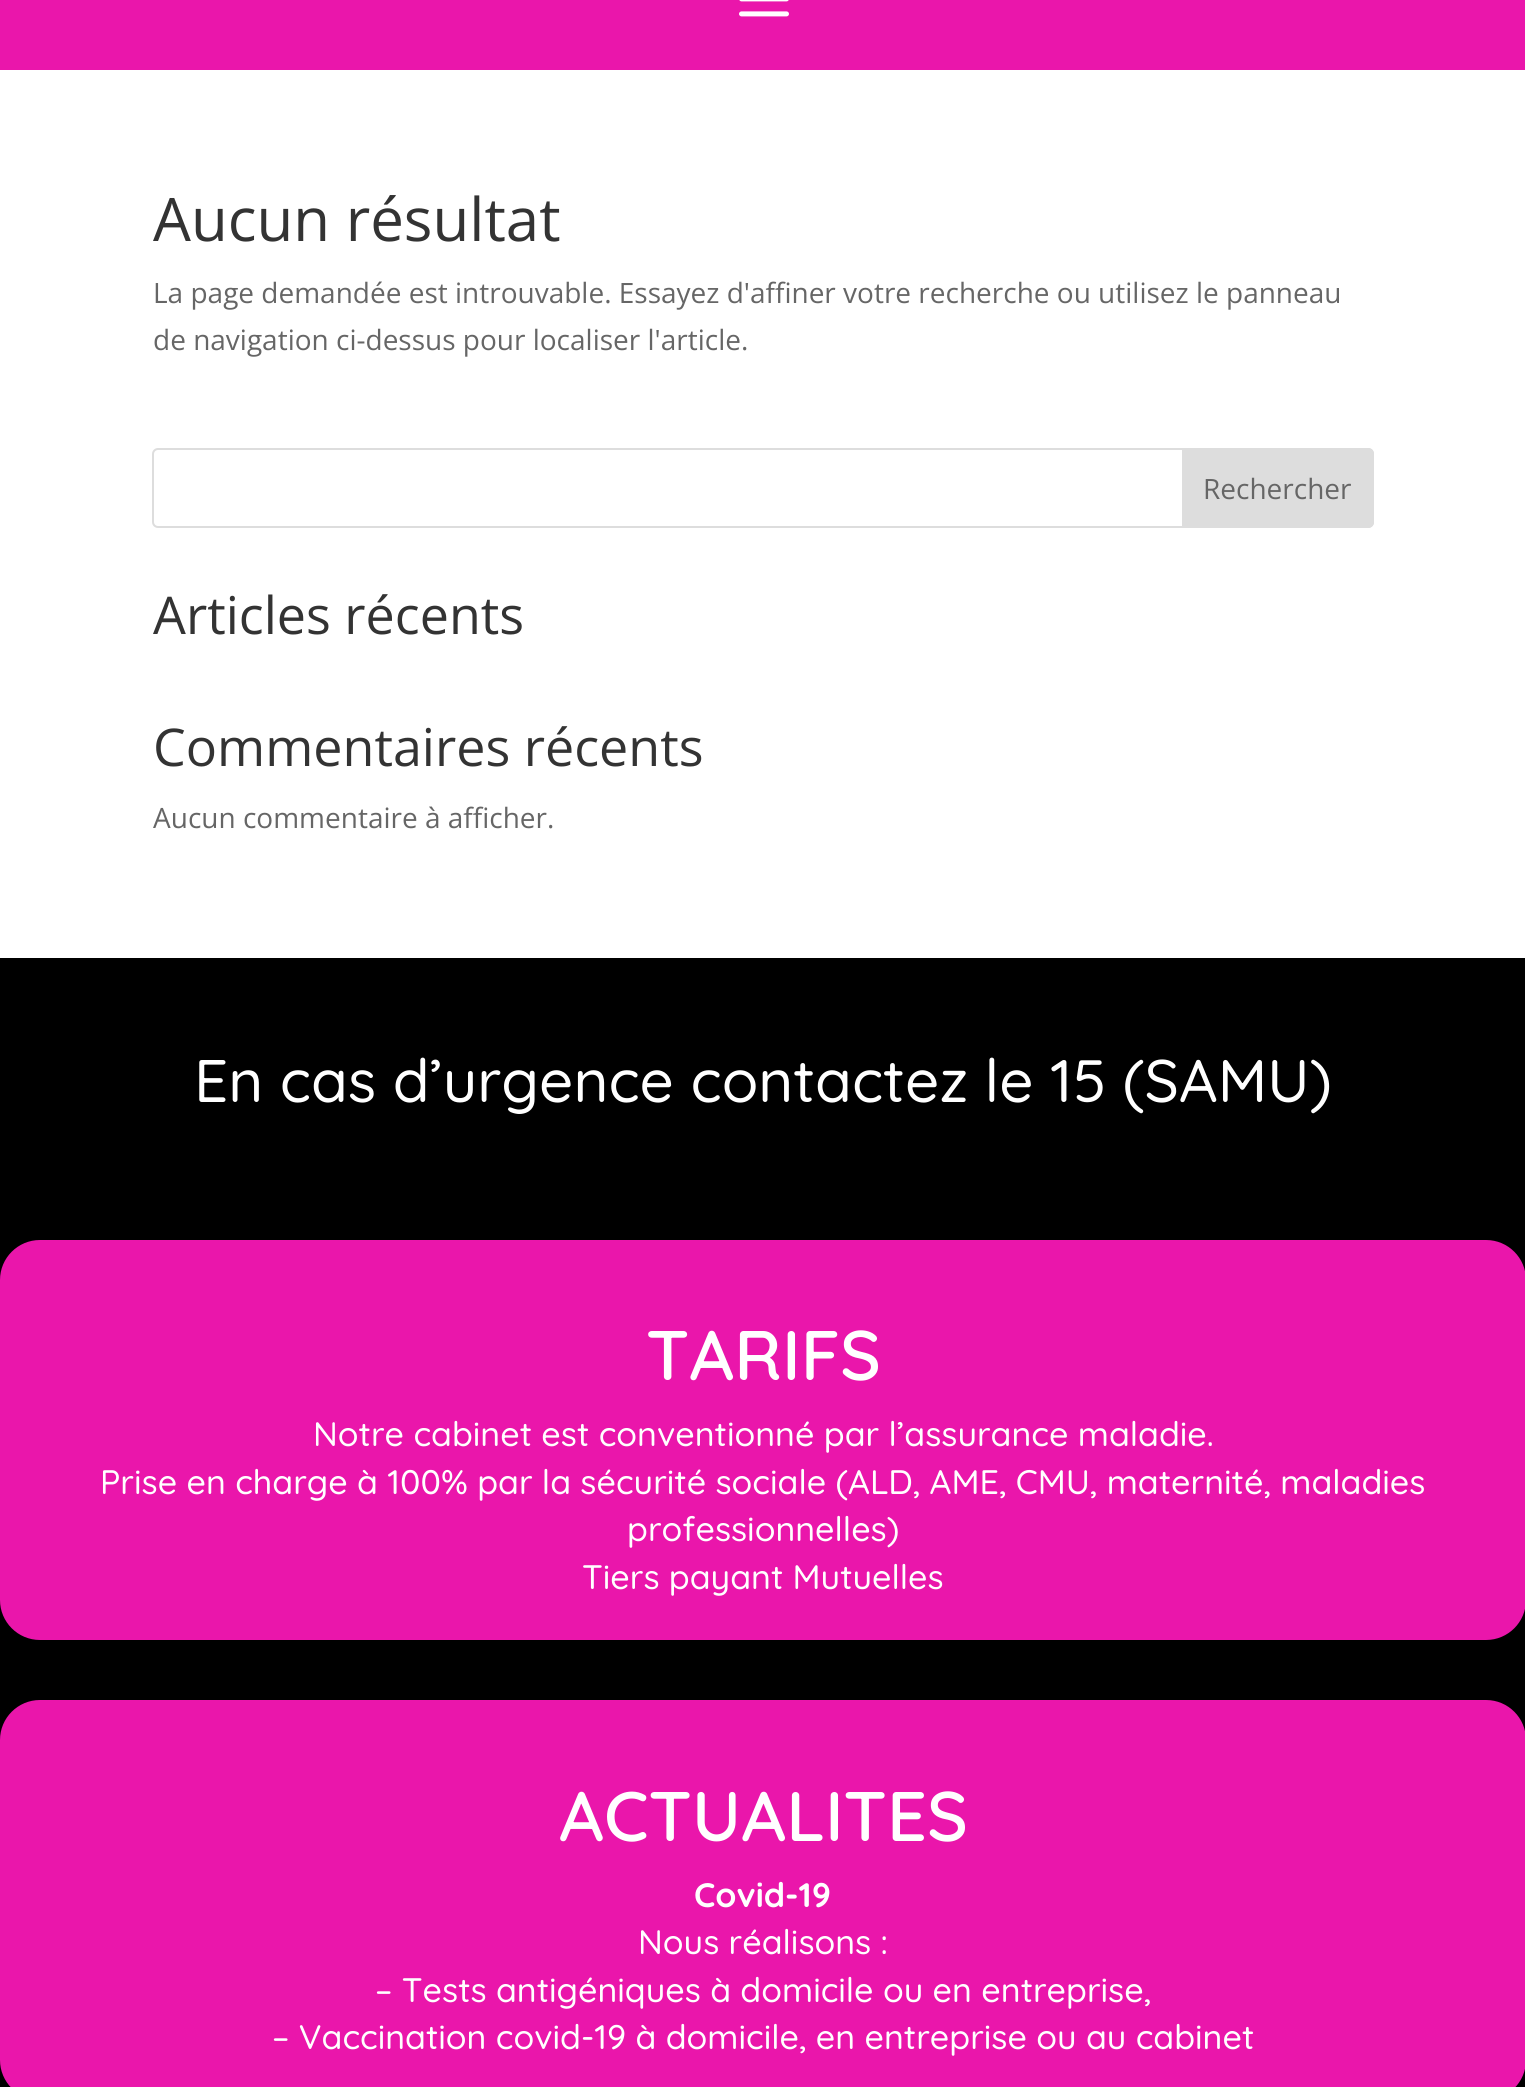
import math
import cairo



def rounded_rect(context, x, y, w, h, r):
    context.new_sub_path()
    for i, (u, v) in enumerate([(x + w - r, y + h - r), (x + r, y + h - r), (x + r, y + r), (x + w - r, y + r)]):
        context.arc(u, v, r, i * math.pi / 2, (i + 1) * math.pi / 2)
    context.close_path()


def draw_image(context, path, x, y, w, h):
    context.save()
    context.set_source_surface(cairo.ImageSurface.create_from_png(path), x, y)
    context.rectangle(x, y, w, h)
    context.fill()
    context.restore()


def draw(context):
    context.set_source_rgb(1, 1, 1)
    context.paint()
    context.set_source_rgb(234 / 255, 22 / 255, 171 / 255)
    context.rectangle(0, 0, 1525, 70)
    context.fill()
    draw_image(context, "images/1.png", 739, 0, 50, 17)
    rounded_rect(context, 153, 449, 1220, 78, 5)
    context.set_source_rgb(221 / 255, 221 / 255, 221 / 255)
    context.stroke()
    context.new_path()
    context.move_to(1183, 449)
    context.line_to(1368, 449)
    context.curve_to(1371, 449, 1373, 451, 1373, 454)
    context.line_to(1373, 522)
    context.curve_to(1373, 525, 1371, 527, 1368, 527)
    context.line_to(1183, 527)
    context.close_path()
    context.fill_preserve()
    context.stroke()
    context.set_source_rgb(0, 0, 0)
    context.rectangle(0, 958, 1525, 1129)
    context.fill()
    context.set_source_rgb(234 / 255, 22 / 255, 171 / 255)
    rounded_rect(context, 0, 1240, 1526, 400, 40)
    context.fill()
    rounded_rect(context, 0, 1700, 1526, 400, 40)
    context.fill()
    context.select_font_face("Open Sans")
    context.set_font_size(60)
    context.set_source_rgb(51 / 255, 51 / 255, 51 / 255)
    context.move_to(153, 241)
    context.show_text("Aucun résultat")
    context.set_font_size(28)
    context.set_source_rgb(102 / 255, 102 / 255, 102 / 255)
    context.move_to(153, 303)
    context.show_text("La page demandée est introuvable. Essayez d'affiner votre recherche ou utilisez le panneau")
    context.move_to(153, 350)
    context.show_text("de navigation ci-dessus pour localiser l'article.")
    context.move_to(1203, 499)
    context.show_text("Rechercher")
    context.set_font_size(52)
    context.set_source_rgb(51 / 255, 51 / 255, 51 / 255)
    context.move_to(153, 634)
    context.show_text("Articles récents")
    context.move_to(153, 766)
    context.show_text("Commentaires récents")
    context.set_font_size(28)
    context.set_source_rgb(102 / 255, 102 / 255, 102 / 255)
    context.move_to(153, 828)
    context.show_text("Aucun commentaire à afficher.")
    context.select_font_face("Quicksand Light")
    context.set_font_size(60)
    context.set_source_rgb(1, 1, 1)
    context.move_to(194, 1102)
    context.show_text("En cas d’urgence contactez le 15 (SAMU)")
    context.select_font_face("Quicksand SemiBold")
    context.set_font_size(70)
    context.move_to(646, 1380)
    context.show_text("TARIFS")
    context.select_font_face("Quicksand Light")
    context.set_font_size(34)
    context.move_to(313, 1446)
    context.show_text("Notre cabinet est conventionné par l’assurance maladie.")
    context.move_to(100, 1494)
    context.show_text("Prise en charge à 100% par la sécurité sociale (ALD, AME, CMU, maternité, maladies")
    context.move_to(627, 1541)
    context.show_text("professionnelles)")
    context.move_to(582, 1589)
    context.show_text("Tiers payant Mutuelles")
    context.select_font_face("Quicksand SemiBold")
    context.set_font_size(70)
    context.move_to(559, 1841)
    context.show_text("ACTUALITES")
    context.select_font_face("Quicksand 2 Light")
    context.set_font_size(34)
    context.move_to(694, 1907)
    context.show_text("Covid-19")
    context.select_font_face("Quicksand Light")
    context.move_to(638, 1954)
    context.show_text("Nous réalisons :")
    context.move_to(375, 2002)
    context.show_text("– Tests antigéniques à domicile ou en entreprise,")
    context.move_to(272, 2049)
    context.show_text("– Vaccination covid-19 à domicile, en entreprise ou au cabinet")


surface = cairo.ImageSurface(cairo.Format.RGB24, 1525, 2087)
context = cairo.Context(surface)
options = cairo.FontOptions()
options.set_hint_metrics(cairo.HintMetrics.OFF)
options.set_hint_style(cairo.HintStyle.NONE)
context.set_font_options(options)
context.set_miter_limit(4)
draw(context)
surface.write_to_png("out.png")
